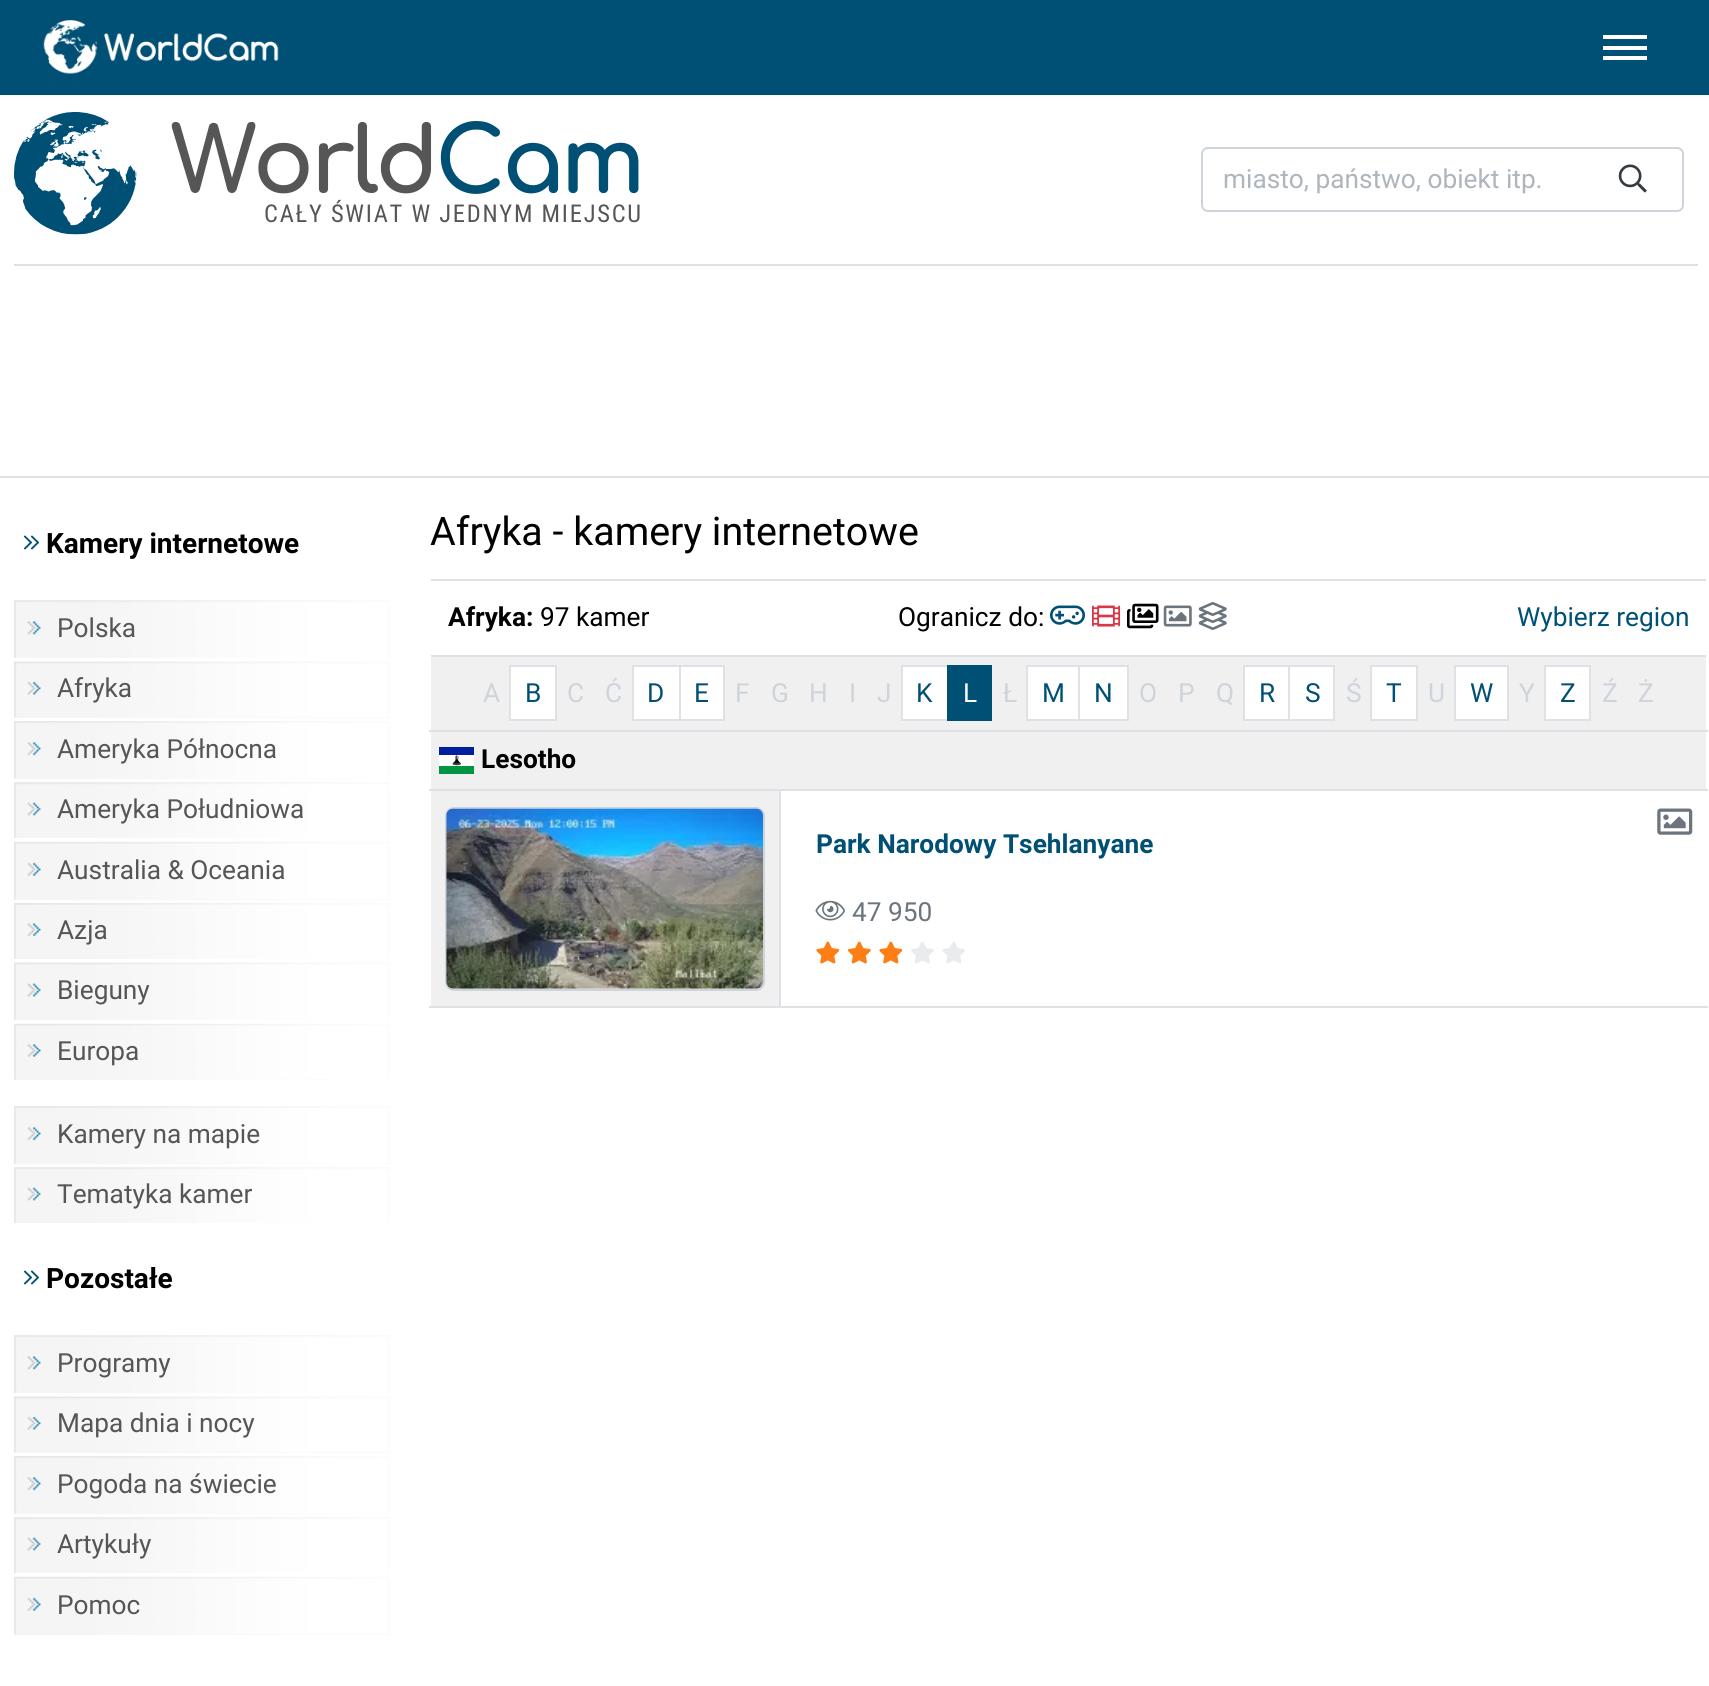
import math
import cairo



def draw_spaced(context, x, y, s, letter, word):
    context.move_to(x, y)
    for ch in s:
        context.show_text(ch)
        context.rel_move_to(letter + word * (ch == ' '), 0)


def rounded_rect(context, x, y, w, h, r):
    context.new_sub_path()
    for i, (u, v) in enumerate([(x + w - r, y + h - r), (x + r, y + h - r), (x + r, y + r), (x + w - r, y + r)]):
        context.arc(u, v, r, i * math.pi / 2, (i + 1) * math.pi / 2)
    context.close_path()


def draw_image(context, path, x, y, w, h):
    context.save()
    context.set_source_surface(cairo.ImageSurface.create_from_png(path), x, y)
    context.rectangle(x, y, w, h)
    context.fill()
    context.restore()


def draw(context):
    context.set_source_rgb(1, 1, 1)
    context.paint()
    context.set_source_rgb(0, 80 / 255, 117 / 255)
    context.rectangle(0, 0, 1709, 95)
    context.fill()
    draw_image(context, "images/1.png", 43, 20, 236, 54)
    context.set_source_rgb(1, 1, 1)
    context.rectangle(1603, 35, 44, 4)
    context.fill()
    context.rectangle(1603, 46, 44, 4)
    context.fill()
    context.rectangle(1603, 56, 44, 4)
    context.fill()
    context.set_source_rgb(222 / 255, 226 / 255, 230 / 255)
    context.rectangle(14, 264, 1684, 2)
    context.fill()
    draw_image(context, "images/2.png", 14, 112, 123, 123)
    rounded_rect(context, 1202, 148, 481, 63, 6)
    context.set_source_rgb(206 / 255, 212 / 255, 218 / 255)
    context.stroke()
    draw_image(context, "images/3.png", 1618, 164, 29, 29)
    context.set_source_rgb(222 / 255, 226 / 255, 230 / 255)
    context.rectangle(0, 476, 1709, 2)
    context.fill()
    draw_image(context, "images/4.png", 23, 535, 16, 15)
    context.set_source_rgb(245 / 255, 245 / 255, 245 / 255)
    context.rectangle(14, 600, 375, 58)
    context.fill()
    draw_image(context, "images/5.png", 14, 600, 375, 58)
    context.rectangle(14, 662, 375, 56)
    context.fill()
    draw_image(context, "images/6.png", 14, 661, 375, 57)
    context.rectangle(14, 721, 375, 58)
    context.fill()
    draw_image(context, "images/7.png", 14, 721, 375, 58)
    context.rectangle(14, 782, 375, 56)
    context.fill()
    draw_image(context, "images/8.png", 14, 782, 375, 57)
    context.rectangle(14, 842, 375, 58)
    context.fill()
    draw_image(context, "images/9.png", 14, 841, 375, 59)
    context.rectangle(15, 903, 374, 56)
    context.fill()
    draw_image(context, "images/10.png", 14, 903, 375, 56)
    context.rectangle(15, 963, 374, 57)
    context.fill()
    draw_image(context, "images/11.png", 14, 962, 375, 59)
    context.rectangle(14, 1024, 375, 56)
    context.fill()
    draw_image(context, "images/12.png", 14, 1023, 375, 57)
    context.rectangle(14, 1106, 375, 58)
    context.fill()
    draw_image(context, "images/7.png", 14, 1106, 375, 58)
    context.rectangle(14, 1167, 375, 56)
    context.fill()
    draw_image(context, "images/8.png", 14, 1167, 375, 57)
    draw_image(context, "images/4.png", 23, 1270, 16, 15)
    context.rectangle(14, 1335, 375, 58)
    context.fill()
    draw_image(context, "images/5.png", 14, 1335, 375, 58)
    context.rectangle(14, 1397, 375, 56)
    context.fill()
    draw_image(context, "images/13.png", 14, 1396, 375, 57)
    context.rectangle(14, 1456, 375, 58)
    context.fill()
    draw_image(context, "images/7.png", 14, 1456, 375, 58)
    context.rectangle(14, 1517, 375, 56)
    context.fill()
    draw_image(context, "images/8.png", 14, 1517, 375, 57)
    context.rectangle(14, 1577, 375, 58)
    context.fill()
    draw_image(context, "images/9.png", 14, 1576, 375, 59)
    context.set_source_rgb(222 / 255, 226 / 255, 230 / 255)
    context.rectangle(431, 579, 1275, 2)
    context.fill()
    draw_image(context, "images/14.png", 1050, 605, 35, 20)
    draw_image(context, "images/15.png", 1092, 605, 28, 22)
    draw_image(context, "images/16.png", 1127, 603, 32, 26)
    draw_image(context, "images/17.png", 1163, 605, 29, 22)
    draw_image(context, "images/18.png", 1198, 602, 29, 28)
    context.rectangle(431, 655, 1275, 2)
    context.fill()
    context.set_source_rgb(240 / 255, 240 / 255, 240 / 255)
    context.rectangle(431, 657, 1275, 73)
    context.fill()
    context.set_source_rgb(222 / 255, 226 / 255, 230 / 255)
    context.rectangle(429, 730, 1279, 2)
    context.fill()
    context.set_source_rgb(1, 1, 1)
    context.rectangle(510, 666, 46, 54)
    context.fill_preserve()
    context.set_source_rgb(222 / 255, 226 / 255, 230 / 255)
    context.stroke()
    context.set_source_rgb(1, 1, 1)
    context.rectangle(633, 666, 47, 54)
    context.fill_preserve()
    context.set_source_rgb(222 / 255, 226 / 255, 230 / 255)
    context.stroke()
    context.set_source_rgb(1, 1, 1)
    context.rectangle(680, 666, 44, 54)
    context.fill_preserve()
    context.set_source_rgb(222 / 255, 226 / 255, 230 / 255)
    context.stroke()
    context.set_source_rgb(1, 1, 1)
    context.rectangle(902, 666, 46, 54)
    context.fill_preserve()
    context.set_source_rgb(222 / 255, 226 / 255, 230 / 255)
    context.stroke()
    context.set_source_rgb(0, 80 / 255, 117 / 255)
    context.rectangle(947, 665, 45, 56)
    context.fill()
    context.set_source_rgb(1, 1, 1)
    context.rectangle(1027, 666, 52, 54)
    context.fill_preserve()
    context.set_source_rgb(222 / 255, 226 / 255, 230 / 255)
    context.stroke()
    context.set_source_rgb(1, 1, 1)
    context.rectangle(1079, 666, 49, 54)
    context.fill_preserve()
    context.set_source_rgb(222 / 255, 226 / 255, 230 / 255)
    context.stroke()
    context.set_source_rgb(1, 1, 1)
    context.rectangle(1244, 666, 45, 54)
    context.fill_preserve()
    context.set_source_rgb(222 / 255, 226 / 255, 230 / 255)
    context.stroke()
    context.set_source_rgb(1, 1, 1)
    context.rectangle(1289, 666, 45, 54)
    context.fill_preserve()
    context.set_source_rgb(222 / 255, 226 / 255, 230 / 255)
    context.stroke()
    context.set_source_rgb(1, 1, 1)
    context.rectangle(1371, 666, 46, 54)
    context.fill_preserve()
    context.set_source_rgb(222 / 255, 226 / 255, 230 / 255)
    context.stroke()
    context.set_source_rgb(1, 1, 1)
    context.rectangle(1455, 666, 53, 54)
    context.fill_preserve()
    context.set_source_rgb(222 / 255, 226 / 255, 230 / 255)
    context.stroke()
    context.set_source_rgb(1, 1, 1)
    context.rectangle(1545, 666, 45, 54)
    context.fill_preserve()
    context.set_source_rgb(222 / 255, 226 / 255, 230 / 255)
    context.stroke()
    context.set_source_rgb(240 / 255, 240 / 255, 240 / 255)
    context.rectangle(431, 732, 1275, 57)
    context.fill()
    context.set_source_rgb(222 / 255, 226 / 255, 230 / 255)
    context.rectangle(779, 1006, 929, 2)
    context.fill()
    context.rectangle(779, 789, 2, 219)
    context.fill()
    context.rectangle(429, 789, 1279, 2)
    context.fill()
    draw_image(context, "images/19.png", 439, 747, 35, 27)
    context.set_source_rgb(240 / 255, 240 / 255, 240 / 255)
    context.rectangle(431, 791, 348, 215)
    context.fill()
    context.set_source_rgb(222 / 255, 226 / 255, 230 / 255)
    context.rectangle(429, 1006, 352, 2)
    context.fill()
    rounded_rect(context, 446, 808, 318, 182, 8)
    context.set_source_rgb(206 / 255, 212 / 255, 218 / 255)
    context.stroke()
    draw_image(context, "images/20.png", 446, 808, 317, 181)
    draw_image(context, "images/21.png", 1657, 808, 36, 27)
    draw_image(context, "images/22.png", 815, 900, 30, 21)
    draw_image(context, "images/23.png", 816, 941, 24, 23)
    draw_image(context, "images/24.png", 847, 941, 24, 23)
    draw_image(context, "images/23.png", 879, 941, 24, 23)
    draw_image(context, "images/25.png", 911, 941, 23, 23)
    draw_image(context, "images/26.png", 942, 941, 23, 23)
    context.select_font_face("Comfortaa", cairo.FontSlant.NORMAL, cairo.FontWeight.BOLD)
    context.set_font_size(91)
    context.set_source_rgb(86 / 255, 86 / 255, 86 / 255)
    draw_spaced(context, 171, 193, "World", -3.5, 0)
    context.set_source_rgb(0, 80 / 255, 117 / 255)
    draw_spaced(context, 435, 193, "Cam", -3.5, 0)
    context.select_font_face("Roboto Condensed")
    context.set_font_size(24.5)
    context.set_source_rgb(86 / 255, 86 / 255, 86 / 255)
    draw_spaced(context, 264, 222, "CAŁY ŚWIAT W JEDNYM MIEJSCU", 1.75, 0)
    context.select_font_face("Roboto")
    context.set_font_size(26.25)
    context.set_source_rgb(173 / 255, 181 / 255, 189 / 255)
    context.move_to(1223, 188)
    context.show_text("miasto, państwo, obiekt itp.")
    context.select_font_face("Roboto", cairo.FontSlant.NORMAL, cairo.FontWeight.BOLD)
    context.set_font_size(28)
    context.set_source_rgb(0, 0, 0)
    context.move_to(46, 553)
    context.show_text("Kamery internetowe")
    context.select_font_face("Roboto")
    context.set_font_size(26.25)
    context.set_source_rgb(86 / 255, 86 / 255, 86 / 255)
    context.move_to(57, 637)
    context.show_text("Polska")
    context.move_to(57, 697)
    context.show_text("Afryka")
    context.move_to(57, 758)
    context.show_text("Ameryka Północna")
    context.move_to(57, 818)
    context.show_text("Ameryka Południowa")
    context.move_to(57, 879)
    context.show_text("Australia & Oceania")
    context.move_to(57, 939)
    context.show_text("Azja")
    context.move_to(57, 999)
    context.show_text("Bieguny")
    context.move_to(57, 1060)
    context.show_text("Europa")
    context.move_to(57, 1143)
    context.show_text("Kamery na mapie")
    context.move_to(57, 1203)
    context.show_text("Tematyka kamer")
    context.select_font_face("Roboto", cairo.FontSlant.NORMAL, cairo.FontWeight.BOLD)
    context.set_font_size(28)
    context.set_source_rgb(0, 0, 0)
    context.move_to(46, 1288)
    context.show_text("Pozostałe")
    context.select_font_face("Roboto")
    context.set_font_size(26.25)
    context.set_source_rgb(86 / 255, 86 / 255, 86 / 255)
    context.move_to(57, 1372)
    context.show_text("Programy")
    context.move_to(57, 1432)
    context.show_text("Mapa dnia i nocy")
    context.move_to(57, 1493)
    context.show_text("Pogoda na świecie")
    context.move_to(57, 1553)
    context.show_text("Artykuły")
    context.move_to(57, 1614)
    context.show_text("Pomoc")
    context.set_font_size(39.4)
    context.set_source_rgb(0, 0, 0)
    context.move_to(430, 545)
    context.show_text("Afryka - kamery internetowe")
    context.select_font_face("Roboto", cairo.FontSlant.NORMAL, cairo.FontWeight.BOLD)
    context.set_font_size(26.25)
    context.move_to(448, 626)
    context.show_text("Afryka:")
    context.select_font_face("Roboto")
    context.move_to(540, 626)
    context.show_text("97 kamer")
    context.move_to(898, 626)
    context.show_text("Ogranicz do:")
    context.set_source_rgb(0, 80 / 255, 117 / 255)
    context.move_to(1517, 626)
    context.show_text("Wybierz region")
    context.set_source_rgb(206 / 255, 212 / 255, 218 / 255)
    context.move_to(483, 702)
    context.show_text("A")
    context.set_source_rgb(0, 80 / 255, 117 / 255)
    context.move_to(525, 702)
    context.show_text("B")
    context.set_source_rgb(206 / 255, 212 / 255, 218 / 255)
    context.move_to(567, 702)
    context.show_text("C")
    context.move_to(605, 702)
    context.show_text("Ć")
    context.set_source_rgb(0, 80 / 255, 117 / 255)
    context.move_to(647, 702)
    context.show_text("D")
    context.move_to(694, 702)
    context.show_text("E")
    context.set_source_rgb(206 / 255, 212 / 255, 218 / 255)
    context.move_to(735, 702)
    context.show_text("F")
    context.move_to(771, 702)
    context.show_text("G")
    context.move_to(809, 702)
    context.show_text("H")
    context.move_to(849, 702)
    context.show_text("I")
    context.move_to(877, 702)
    context.show_text("J")
    context.set_source_rgb(0, 80 / 255, 117 / 255)
    context.move_to(916, 702)
    context.show_text("K")
    context.set_source_rgb(1, 1, 1)
    context.move_to(963, 702)
    context.show_text("L")
    context.set_source_rgb(206 / 255, 212 / 255, 218 / 255)
    context.move_to(1003, 702)
    context.show_text("Ł")
    context.set_source_rgb(0, 80 / 255, 117 / 255)
    context.move_to(1042, 702)
    context.show_text("M")
    context.move_to(1094, 702)
    context.show_text("N")
    context.set_source_rgb(206 / 255, 212 / 255, 218 / 255)
    context.move_to(1139, 702)
    context.show_text("O")
    context.move_to(1178, 702)
    context.show_text("P")
    context.move_to(1216, 702)
    context.show_text("Q")
    context.set_source_rgb(0, 80 / 255, 117 / 255)
    context.move_to(1259, 702)
    context.show_text("R")
    context.move_to(1305, 702)
    context.show_text("S")
    context.set_source_rgb(206 / 255, 212 / 255, 218 / 255)
    context.move_to(1346, 702)
    context.show_text("Ś")
    context.set_source_rgb(0, 80 / 255, 117 / 255)
    context.move_to(1386, 702)
    context.show_text("T")
    context.set_source_rgb(206 / 255, 212 / 255, 218 / 255)
    context.move_to(1428, 702)
    context.show_text("U")
    context.set_source_rgb(0, 80 / 255, 117 / 255)
    context.move_to(1470, 702)
    context.show_text("W")
    context.set_source_rgb(206 / 255, 212 / 255, 218 / 255)
    context.move_to(1519, 702)
    context.show_text("Y")
    context.set_source_rgb(0, 80 / 255, 117 / 255)
    context.move_to(1560, 702)
    context.show_text("Z")
    context.set_source_rgb(206 / 255, 212 / 255, 218 / 255)
    context.move_to(1602, 702)
    context.show_text("Ź")
    context.move_to(1638, 702)
    context.show_text("Ż")
    context.select_font_face("Roboto", cairo.FontSlant.NORMAL, cairo.FontWeight.BOLD)
    context.set_source_rgb(0, 0, 0)
    context.move_to(481, 768)
    context.show_text("Lesotho")
    context.set_source_rgb(0, 80 / 255, 117 / 255)
    context.move_to(816, 853)
    context.show_text("Park Narodowy Tsehlanyane")
    context.select_font_face("Roboto")
    context.set_source_rgb(108 / 255, 117 / 255, 125 / 255)
    context.move_to(852, 921)
    context.show_text("47 950")


surface = cairo.ImageSurface(cairo.Format.RGB24, 1709, 1686)
context = cairo.Context(surface)
options = cairo.FontOptions()
options.set_hint_metrics(cairo.HintMetrics.OFF)
options.set_hint_style(cairo.HintStyle.NONE)
context.set_font_options(options)
context.set_miter_limit(4)
draw(context)
surface.write_to_png("out.png")
